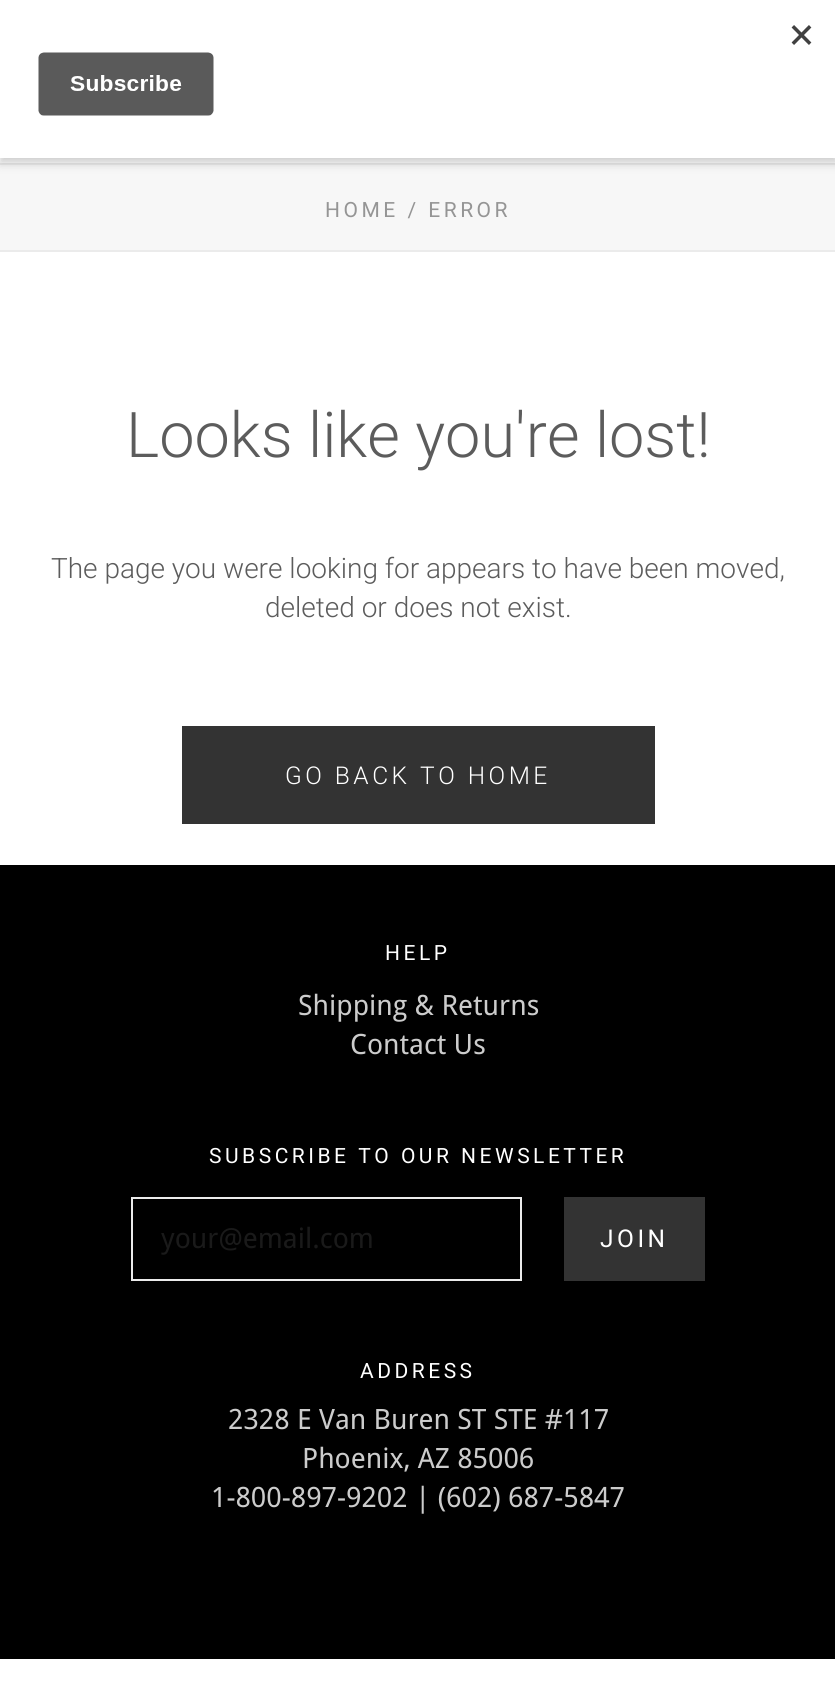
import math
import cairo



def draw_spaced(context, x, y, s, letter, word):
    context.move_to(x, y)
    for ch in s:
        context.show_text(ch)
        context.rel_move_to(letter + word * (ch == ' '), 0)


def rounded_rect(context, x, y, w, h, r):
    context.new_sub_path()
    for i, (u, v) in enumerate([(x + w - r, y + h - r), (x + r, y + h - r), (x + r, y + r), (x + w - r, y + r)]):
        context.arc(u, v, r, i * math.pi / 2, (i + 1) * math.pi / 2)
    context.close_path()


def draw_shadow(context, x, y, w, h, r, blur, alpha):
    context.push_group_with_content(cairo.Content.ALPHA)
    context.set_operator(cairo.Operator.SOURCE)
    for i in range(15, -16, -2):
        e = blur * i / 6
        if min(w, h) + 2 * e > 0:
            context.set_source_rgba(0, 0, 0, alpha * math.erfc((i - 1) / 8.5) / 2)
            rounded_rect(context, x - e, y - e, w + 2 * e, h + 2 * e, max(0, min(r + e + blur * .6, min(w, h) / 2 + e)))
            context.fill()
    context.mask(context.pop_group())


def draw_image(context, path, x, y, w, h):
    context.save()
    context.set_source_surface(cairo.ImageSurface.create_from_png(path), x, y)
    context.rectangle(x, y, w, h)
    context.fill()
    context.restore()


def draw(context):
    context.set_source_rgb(1, 1, 1)
    context.paint()
    context.set_source_rgb(235 / 255, 235 / 255, 235 / 255)
    context.rectangle(0, 163, 835, 2)
    context.fill()
    context.set_source_rgb(247 / 255, 247 / 255, 247 / 255)
    context.rectangle(0, 165, 835, 85)
    context.fill()
    context.set_source_rgb(0, 0, 0)
    draw_shadow(context, 0, 5, 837, 158, 0, 5, 0.2)
    context.set_source_rgb(1, 1, 1)
    context.rectangle(0, 0, 835, 158)
    context.fill()
    draw_image(context, "images/1.png", 38, 25, 774, 91)
    context.set_source_rgb(235 / 255, 235 / 255, 235 / 255)
    context.rectangle(0, 250, 835, 2)
    context.fill()
    context.set_source_rgb(51 / 255, 51 / 255, 51 / 255)
    context.rectangle(182, 726, 473, 98)
    context.fill()
    context.set_source_rgb(0, 0, 0)
    context.rectangle(0, 865, 835, 794)
    context.fill()
    context.rectangle(132, 1198, 389, 82)
    context.set_source_rgb(235 / 255, 235 / 255, 235 / 255)
    context.stroke()
    context.set_source_rgb(51 / 255, 51 / 255, 51 / 255)
    context.rectangle(564, 1197, 141, 84)
    context.fill()
    context.select_font_face("Roboto")
    context.set_font_size(21)
    context.set_source_rgb(149 / 255, 149 / 255, 149 / 255)
    draw_spaced(context, 325, 217, "HOME / ERROR", 3.5, 0)
    context.select_font_face("Roboto Light")
    context.set_font_size(63)
    context.set_source_rgb(92 / 255, 92 / 255, 92 / 255)
    context.move_to(126, 457)
    context.show_text("Looks like you're lost!")
    context.set_font_size(28)
    context.move_to(51, 578)
    context.show_text("The page you were looking for appears to have been moved,")
    context.move_to(265, 617)
    context.show_text("deleted or does not exist.")
    context.set_font_size(24.5)
    context.set_source_rgb(1, 1, 1)
    draw_spaced(context, 285, 784, "GO BACK TO HOME", 3.5, 0)
    context.select_font_face("Roboto")
    context.set_font_size(21)
    draw_spaced(context, 385, 960, "HELP", 3.5, 0)
    context.select_font_face("Droid Sans")
    context.set_font_size(28)
    context.set_source_rgb(204 / 255, 204 / 255, 204 / 255)
    context.move_to(298, 1015)
    context.show_text("Shipping & Returns")
    context.move_to(350, 1054)
    context.show_text("Contact Us")
    context.select_font_face("Roboto")
    context.set_font_size(21)
    context.set_source_rgb(1, 1, 1)
    draw_spaced(context, 209, 1163, "SUBSCRIBE TO OUR NEWSLETTER", 3.5, 0)
    context.select_font_face("Droid Sans")
    context.set_font_size(28)
    context.set_source_rgb(26 / 255, 26 / 255, 26 / 255)
    context.move_to(161, 1248)
    context.show_text("your@email.com")
    context.select_font_face("Roboto")
    context.set_font_size(24.5)
    context.set_source_rgb(1, 1, 1)
    draw_spaced(context, 600, 1247, "JOIN", 3.5, 0)
    context.set_font_size(21)
    draw_spaced(context, 360, 1378, "ADDRESS", 3.5, 0)
    context.select_font_face("Droid Sans")
    context.set_font_size(28)
    context.set_source_rgb(204 / 255, 204 / 255, 204 / 255)
    context.move_to(228, 1429)
    context.show_text("2328 E Van Buren ST STE #117")
    context.move_to(302, 1468)
    context.show_text("Phoenix, AZ 85006")
    context.move_to(211, 1507)
    context.show_text("1-800-897-9202 | (602) 687-5847")


surface = cairo.ImageSurface(cairo.Format.RGB24, 835, 1702)
context = cairo.Context(surface)
options = cairo.FontOptions()
options.set_hint_metrics(cairo.HintMetrics.OFF)
options.set_hint_style(cairo.HintStyle.NONE)
context.set_font_options(options)
context.set_miter_limit(4)
draw(context)
surface.write_to_png("out.png")
